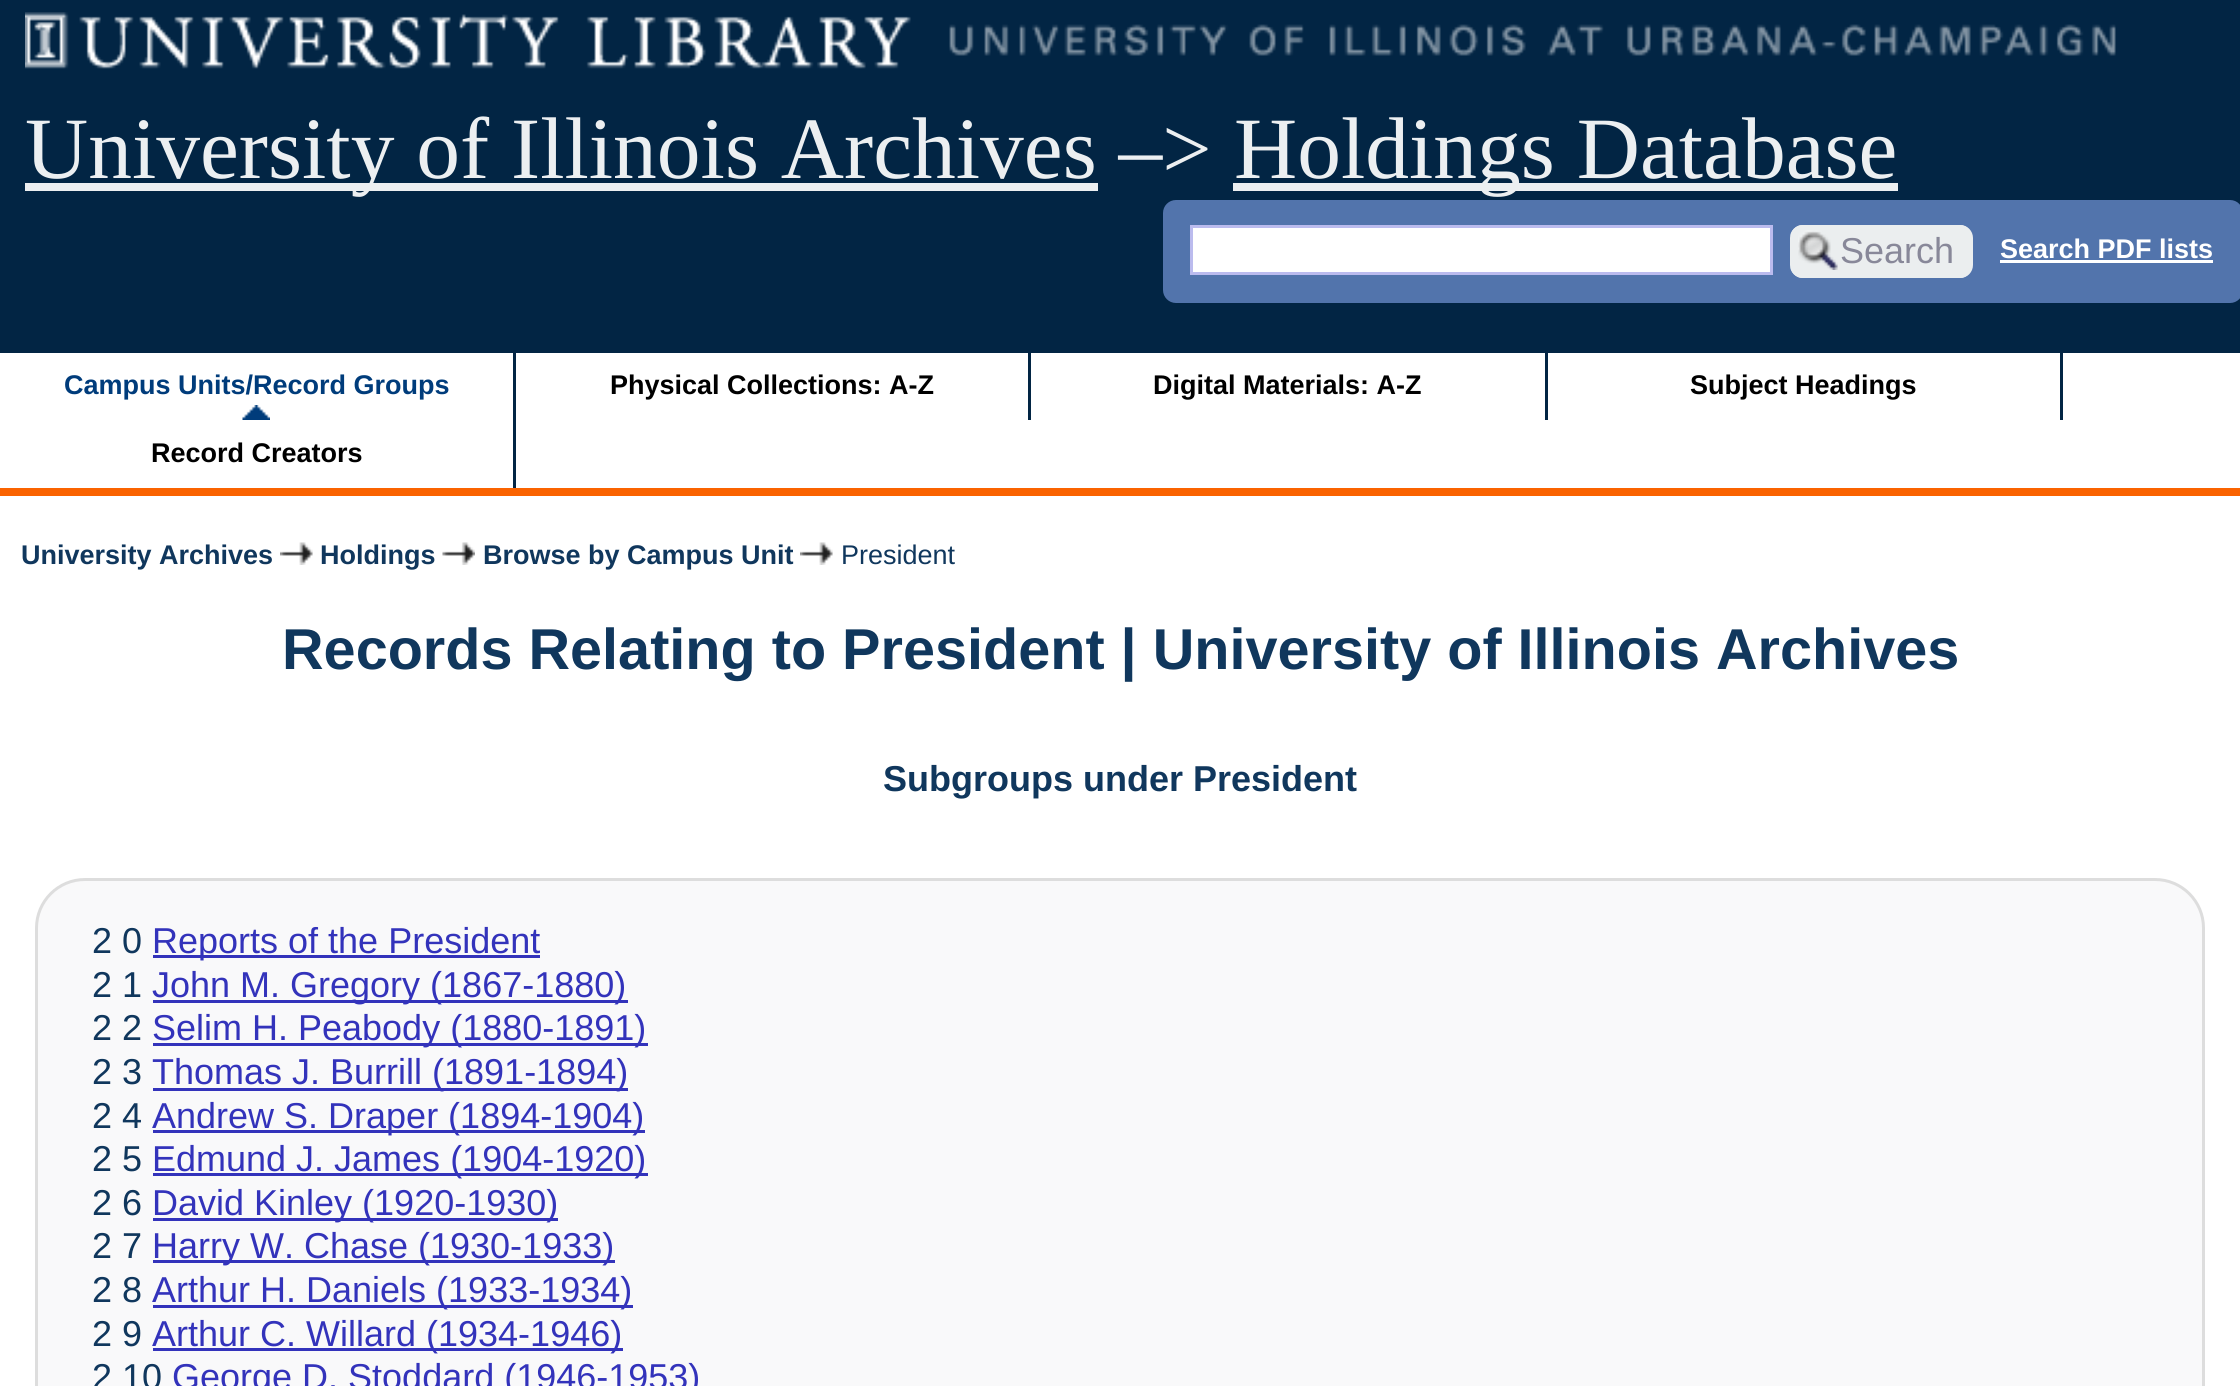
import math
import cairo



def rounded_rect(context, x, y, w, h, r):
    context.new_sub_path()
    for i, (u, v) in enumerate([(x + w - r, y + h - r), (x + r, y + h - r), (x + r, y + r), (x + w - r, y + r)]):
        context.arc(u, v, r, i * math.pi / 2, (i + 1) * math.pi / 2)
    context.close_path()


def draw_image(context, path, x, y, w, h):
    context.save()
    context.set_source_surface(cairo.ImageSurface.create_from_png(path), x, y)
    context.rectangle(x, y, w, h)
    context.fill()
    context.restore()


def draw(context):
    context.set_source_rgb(1, 1, 1)
    context.paint()
    context.set_source_rgb(2 / 255, 37 / 255, 68 / 255)
    context.rectangle(0, 0, 2240, 353)
    context.fill()
    draw_image(context, "images/1.png", 25, 12, 2091, 57)
    context.set_source_rgb(250 / 255, 99 / 255, 0)
    context.rectangle(0, 488, 2240, 8)
    context.fill()
    context.set_source_rgb(236 / 255, 239 / 255, 241 / 255)
    context.rectangle(25, 183, 1073, 8)
    context.fill()
    context.rectangle(1233, 183, 665, 8)
    context.fill()
    context.set_source_rgb(82 / 255, 116 / 255, 172 / 255)
    rounded_rect(context, 1164.5, 201.5, 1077, 100, 11.5)
    context.fill_preserve()
    context.set_line_width(3)
    context.stroke()
    context.set_source_rgb(1, 1, 1)
    context.rectangle(1191.5, 226.5, 580, 47)
    context.fill_preserve()
    context.set_source_rgb(187 / 255, 187 / 255, 238 / 255)
    context.stroke()
    context.set_source_rgb(235 / 255, 238 / 255, 239 / 255)
    rounded_rect(context, 1790, 225, 183, 53, 13)
    context.fill()
    draw_image(context, "images/2.png", 1798, 230, 40, 40)
    context.set_fill_rule(cairo.FillRule.EVEN_ODD)
    context.new_path()
    context.move_to(1802, 225)
    context.line_to(1960, 225)
    context.curve_to(1967, 225, 1972, 231, 1972, 238)
    context.line_to(1972, 265)
    context.curve_to(1972, 272, 1967, 278, 1960, 278)
    context.line_to(1802, 278)
    context.curve_to(1796, 278, 1790, 272, 1790, 265)
    context.line_to(1790, 238)
    context.curve_to(1790, 231, 1796, 225, 1802, 225)
    context.close_path()
    context.move_to(1802, 228)
    context.line_to(1960, 228)
    context.curve_to(1966, 228, 1970, 232, 1970, 238)
    context.line_to(1970, 265)
    context.curve_to(1970, 271, 1966, 275, 1960, 275)
    context.line_to(1802, 275)
    context.curve_to(1796, 275, 1790, 271, 1790, 265)
    context.line_to(1790, 238)
    context.curve_to(1790, 232, 1796, 228, 1802, 228)
    context.close_path()
    context.fill()
    context.set_source_rgb(1, 1, 1)
    context.rectangle(2000, 260, 213, 3)
    context.fill()
    draw_image(context, "images/3.png", 242, 405, 28, 15)
    context.set_source_rgb(2 / 255, 37 / 255, 68 / 255)
    context.rectangle(513, 353, 3, 135)
    context.fill()
    context.rectangle(1028, 353, 3, 67)
    context.fill()
    context.rectangle(1545, 353, 3, 67)
    context.fill()
    context.rectangle(2060, 353, 3, 67)
    context.fill()
    draw_image(context, "images/4.png", 280, 542, 33, 23)
    draw_image(context, "images/5.png", 442, 542, 33, 23)
    draw_image(context, "images/6.png", 800, 542, 33, 23)
    context.set_source_rgb(249 / 255, 249 / 255, 250 / 255)
    rounded_rect(context, 36.5, 879.5, 2167, 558, 48.5)
    context.fill_preserve()
    context.set_source_rgb(221 / 255, 221 / 255, 221 / 255)
    context.stroke()
    context.set_source_rgb(51 / 255, 51 / 255, 187 / 255)
    context.rectangle(153, 955, 387, 3)
    context.fill()
    context.rectangle(153, 1000, 475, 3)
    context.fill()
    context.rectangle(153, 1043, 495, 3)
    context.fill()
    context.rectangle(153, 1088, 475, 3)
    context.fill()
    context.rectangle(153, 1130, 492, 3)
    context.fill()
    context.rectangle(153, 1173, 495, 3)
    context.fill()
    context.rectangle(153, 1218, 405, 3)
    context.fill()
    context.rectangle(153, 1260, 462, 3)
    context.fill()
    context.rectangle(153, 1305, 480, 3)
    context.fill()
    context.rectangle(153, 1348, 470, 3)
    context.fill()
    context.select_font_face("Liberation Serif")
    context.set_font_size(87.5)
    context.set_source_rgb(236 / 255, 239 / 255, 241 / 255)
    context.move_to(25, 178)
    context.show_text("University of Illinois Archives –>")
    context.move_to(1234, 178)
    context.show_text("Holdings Database")
    context.select_font_face("Liberation Sans")
    context.set_font_size(36)
    context.set_source_rgb(136 / 255, 136 / 255, 153 / 255)
    context.move_to(1840, 263)
    context.show_text("Search")
    context.select_font_face("Liberation Sans", cairo.FontSlant.NORMAL, cairo.FontWeight.BOLD)
    context.set_font_size(27)
    context.set_source_rgb(1, 1, 1)
    context.move_to(2000, 258)
    context.show_text("Search PDF lists")
    context.set_source_rgb(0, 60 / 255, 123 / 255)
    context.move_to(64, 394)
    context.show_text("Campus Units/Record Groups")
    context.set_source_rgb(0, 0, 0)
    context.move_to(610, 394)
    context.show_text("Physical Collections: A-Z")
    context.move_to(1153, 394)
    context.show_text("Digital Materials: A-Z")
    context.move_to(1690, 394)
    context.show_text("Subject Headings")
    context.move_to(151, 462)
    context.show_text("Record Creators")
    context.set_source_rgb(16 / 255, 55 / 255, 93 / 255)
    context.move_to(21, 564)
    context.show_text("University Archives")
    context.move_to(320, 564)
    context.show_text("Holdings")
    context.move_to(483, 564)
    context.show_text("Browse by Campus Unit")
    context.select_font_face("Liberation Sans")
    context.move_to(841, 564)
    context.show_text("President")
    context.select_font_face("Liberation Sans", cairo.FontSlant.NORMAL, cairo.FontWeight.BOLD)
    context.set_font_size(57.6)
    context.move_to(282, 669)
    context.show_text("Records Relating to President | University of Illinois Archives")
    context.set_font_size(36)
    context.move_to(883, 791)
    context.show_text("Subgroups under President")
    context.select_font_face("Liberation Sans")
    context.move_to(92, 953)
    context.show_text("2 0")
    context.set_source_rgb(51 / 255, 51 / 255, 187 / 255)
    context.move_to(152, 953)
    context.show_text("Reports of the President")
    context.set_source_rgb(16 / 255, 55 / 255, 93 / 255)
    context.move_to(92, 997)
    context.show_text("2 1")
    context.set_source_rgb(51 / 255, 51 / 255, 187 / 255)
    context.move_to(152, 997)
    context.show_text("John M. Gregory (1867-1880)")
    context.set_source_rgb(16 / 255, 55 / 255, 93 / 255)
    context.move_to(92, 1040)
    context.show_text("2 2")
    context.set_source_rgb(51 / 255, 51 / 255, 187 / 255)
    context.move_to(152, 1040)
    context.show_text("Selim H. Peabody (1880-1891)")
    context.set_source_rgb(16 / 255, 55 / 255, 93 / 255)
    context.move_to(92, 1084)
    context.show_text("2 3")
    context.set_source_rgb(51 / 255, 51 / 255, 187 / 255)
    context.move_to(152, 1084)
    context.show_text("Thomas J. Burrill (1891-1894)")
    context.set_source_rgb(16 / 255, 55 / 255, 93 / 255)
    context.move_to(92, 1128)
    context.show_text("2 4")
    context.set_source_rgb(51 / 255, 51 / 255, 187 / 255)
    context.move_to(152, 1128)
    context.show_text("Andrew S. Draper (1894-1904)")
    context.set_source_rgb(16 / 255, 55 / 255, 93 / 255)
    context.move_to(92, 1171)
    context.show_text("2 5")
    context.set_source_rgb(51 / 255, 51 / 255, 187 / 255)
    context.move_to(152, 1171)
    context.show_text("Edmund J. James (1904-1920)")
    context.set_source_rgb(16 / 255, 55 / 255, 93 / 255)
    context.move_to(92, 1215)
    context.show_text("2 6")
    context.set_source_rgb(51 / 255, 51 / 255, 187 / 255)
    context.move_to(152, 1215)
    context.show_text("David Kinley (1920-1930)")
    context.set_source_rgb(16 / 255, 55 / 255, 93 / 255)
    context.move_to(92, 1258)
    context.show_text("2 7")
    context.set_source_rgb(51 / 255, 51 / 255, 187 / 255)
    context.move_to(152, 1258)
    context.show_text("Harry W. Chase (1930-1933)")
    context.set_source_rgb(16 / 255, 55 / 255, 93 / 255)
    context.move_to(92, 1302)
    context.show_text("2 8")
    context.set_source_rgb(51 / 255, 51 / 255, 187 / 255)
    context.move_to(152, 1302)
    context.show_text("Arthur H. Daniels (1933-1934)")
    context.set_source_rgb(16 / 255, 55 / 255, 93 / 255)
    context.move_to(92, 1346)
    context.show_text("2 9")
    context.set_source_rgb(51 / 255, 51 / 255, 187 / 255)
    context.move_to(152, 1346)
    context.show_text("Arthur C. Willard (1934-1946)")
    context.set_source_rgb(16 / 255, 55 / 255, 93 / 255)
    context.move_to(92, 1389)
    context.show_text("2 10")
    context.set_source_rgb(51 / 255, 51 / 255, 187 / 255)
    context.move_to(172, 1389)
    context.show_text("George D. Stoddard (1946-1953)")


surface = cairo.ImageSurface(cairo.Format.RGB24, 2240, 1386)
context = cairo.Context(surface)
options = cairo.FontOptions()
options.set_hint_metrics(cairo.HintMetrics.OFF)
options.set_hint_style(cairo.HintStyle.NONE)
context.set_font_options(options)
context.set_miter_limit(4)
draw(context)
surface.write_to_png("out.png")
